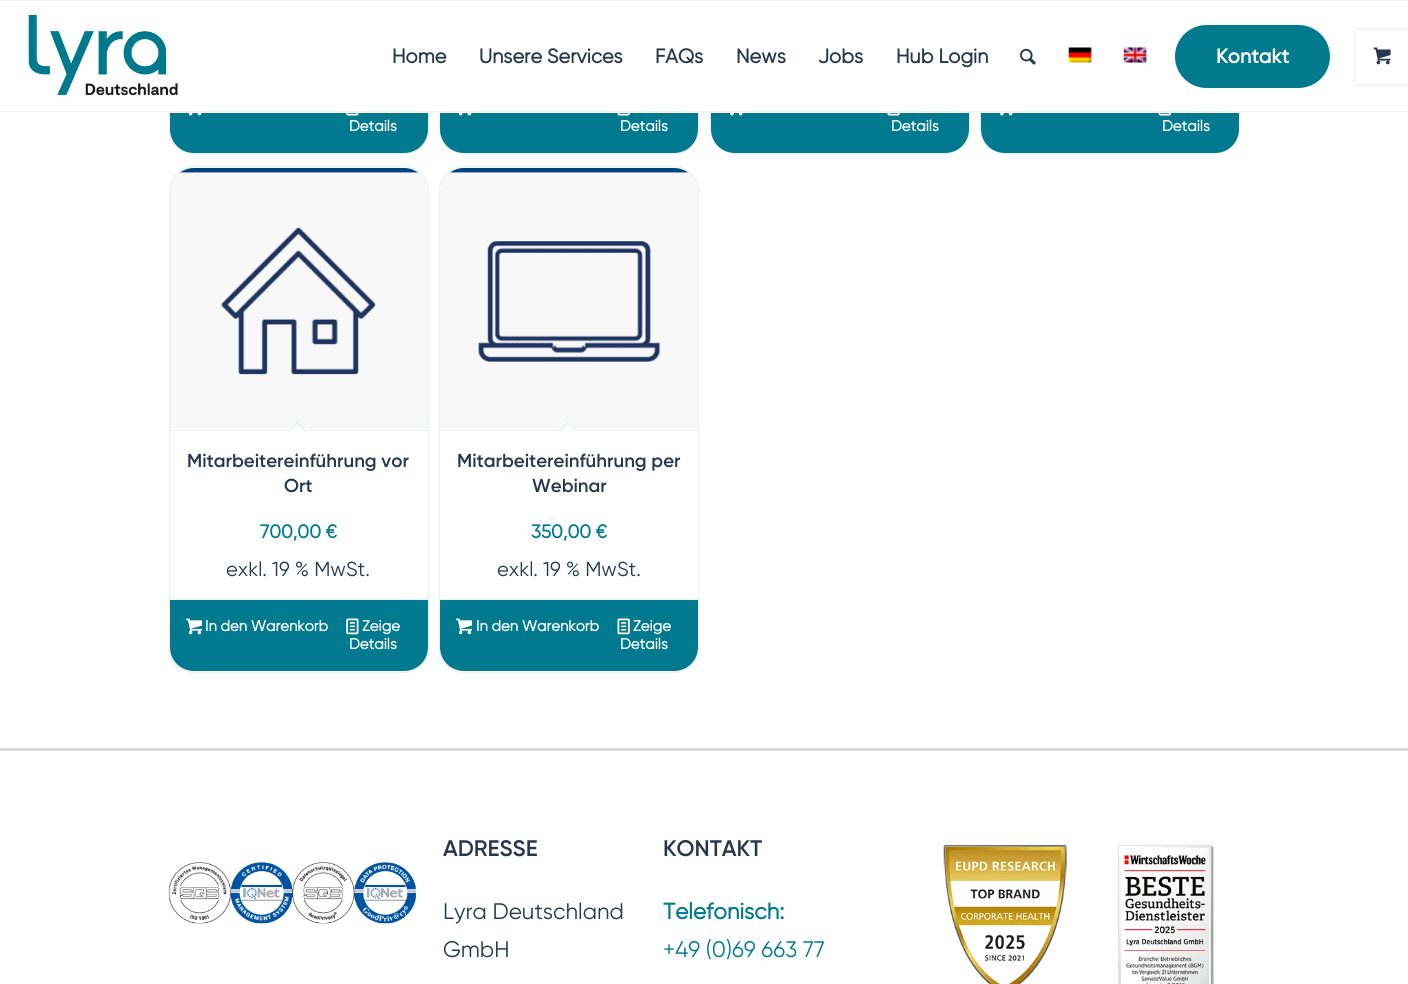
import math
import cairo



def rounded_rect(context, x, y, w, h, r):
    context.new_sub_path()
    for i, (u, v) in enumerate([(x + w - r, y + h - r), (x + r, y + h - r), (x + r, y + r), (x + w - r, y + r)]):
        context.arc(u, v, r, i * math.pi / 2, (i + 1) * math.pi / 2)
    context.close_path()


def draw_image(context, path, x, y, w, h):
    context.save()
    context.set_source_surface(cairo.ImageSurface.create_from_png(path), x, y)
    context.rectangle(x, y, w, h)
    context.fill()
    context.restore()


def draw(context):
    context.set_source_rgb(1, 1, 1)
    context.paint()
    rounded_rect(context, 169.5, -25.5, 259, 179, 24.5)
    context.set_source_rgb(233 / 255, 239 / 255, 242 / 255)
    context.set_line_width(1)
    context.stroke()
    context.set_source_rgb(1 / 255, 122 / 255, 143 / 255)
    context.new_path()
    context.move_to(170, 80)
    context.line_to(428, 80)
    context.line_to(428, 129)
    context.curve_to(428, 142.5, 417.5, 153, 404, 153)
    context.line_to(194, 153)
    context.curve_to(180.5, 153, 170, 142.5, 170, 129)
    context.close_path()
    context.fill()
    rounded_rect(context, 439.5, -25.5, 259, 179, 24.5)
    context.set_source_rgb(233 / 255, 239 / 255, 242 / 255)
    context.stroke()
    context.set_source_rgb(1 / 255, 122 / 255, 143 / 255)
    context.new_path()
    context.move_to(440, 80)
    context.line_to(698, 80)
    context.line_to(698, 129)
    context.curve_to(698, 142.5, 687.5, 153, 674, 153)
    context.line_to(464, 153)
    context.curve_to(450.5, 153, 440, 142.5, 440, 129)
    context.close_path()
    context.fill()
    rounded_rect(context, 710.5, -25.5, 259, 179, 24.5)
    context.set_source_rgb(233 / 255, 239 / 255, 242 / 255)
    context.stroke()
    context.set_source_rgb(1 / 255, 122 / 255, 143 / 255)
    context.new_path()
    context.move_to(711, 80)
    context.line_to(969, 80)
    context.line_to(969, 129)
    context.curve_to(969, 142.5, 958.5, 153, 945, 153)
    context.line_to(735, 153)
    context.curve_to(721.5, 153, 711, 142.5, 711, 129)
    context.close_path()
    context.fill()
    rounded_rect(context, 980.5, -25.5, 259, 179, 24.5)
    context.set_source_rgb(233 / 255, 239 / 255, 242 / 255)
    context.stroke()
    context.set_source_rgb(1 / 255, 122 / 255, 143 / 255)
    context.new_path()
    context.move_to(981, 80)
    context.line_to(1239, 80)
    context.line_to(1239, 129)
    context.curve_to(1239, 142.5, 1228.5, 153, 1215, 153)
    context.line_to(1005, 153)
    context.curve_to(991.5, 153, 981, 142.5, 981, 129)
    context.close_path()
    context.fill()
    context.set_source_rgb(1, 1, 1)
    context.rectangle(169, 1, 1071, 112)
    context.fill()
    context.set_source_rgb(233 / 255, 239 / 255, 242 / 255)
    context.rectangle(0, 0, 1408, 1)
    context.fill()
    context.rectangle(0, 111, 1408, 1)
    context.fill()
    draw_image(context, "images/1.png", 28, 14, 150, 82)
    draw_image(context, "images/2.png", 1020, 48, 16, 17)
    draw_image(context, "images/3.png", 1068, 47, 24, 16)
    draw_image(context, "images/4.png", 1123, 47, 24, 16)
    context.set_source_rgb(1 / 255, 122 / 255, 142 / 255)
    rounded_rect(context, 1175, 25, 155, 63, 31.5)
    context.fill()
    rounded_rect(context, 1354.5, 28.5, 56, 56, 2)
    context.set_source_rgb(233 / 255, 239 / 255, 242 / 255)
    context.stroke()
    context.set_source_rgb(1, 1, 1)
    context.rectangle(1355, 29, 1, 55)
    context.fill()
    draw_image(context, "images/5.png", 1373, 47, 18, 18)
    draw_image(context, "images/6.png", 188, 113, 14, 3)
    draw_image(context, "images/7.png", 346, 113, 13, 3)
    draw_image(context, "images/6.png", 458, 113, 14, 3)
    draw_image(context, "images/8.png", 617, 113, 13, 3)
    draw_image(context, "images/9.png", 730, 113, 13, 3)
    draw_image(context, "images/8.png", 887, 113, 13, 3)
    draw_image(context, "images/9.png", 1000, 113, 13, 3)
    draw_image(context, "images/10.png", 1158, 113, 13, 3)
    rounded_rect(context, 169.5, 166.5, 259, 506, 24.5)
    context.set_source_rgb(233 / 255, 239 / 255, 242 / 255)
    context.stroke()
    context.save()
    rounded_rect(context, 170, 168, 258, 503, 24)
    context.clip()
    context.set_source_rgb(0, 68 / 255, 124 / 255)
    context.new_path()
    context.move_to(171, 168)
    context.line_to(427, 168)
    context.curve_to(427.5, 168, 428, 168.5, 428, 169)
    context.line_to(428, 173)
    context.line_to(171, 173)
    context.close_path()
    context.fill()
    context.restore()
    draw_image(context, "images/11.png", 170, 172, 257, 257)
    context.rectangle(170, 430, 258, 1)
    context.fill()
    context.set_source_rgb(1, 1, 1)
    context.new_path()
    context.move_to(297, 422)
    context.line_to(306, 431)
    context.line_to(297, 440)
    context.line_to(288, 431)
    context.close_path()
    context.fill()
    context.set_source_rgb(233 / 255, 239 / 255, 242 / 255)
    context.new_path()
    context.move_to(297, 422)
    context.line_to(306, 431)
    context.line_to(305, 432)
    context.line_to(296, 423)
    context.close_path()
    context.fill()
    context.new_path()
    context.move_to(297, 422)
    context.line_to(298, 423)
    context.line_to(289, 432)
    context.line_to(288, 431)
    context.close_path()
    context.fill()
    context.set_source_rgb(1 / 255, 122 / 255, 143 / 255)
    context.new_path()
    context.move_to(170, 599)
    context.line_to(428, 599)
    context.line_to(428, 647)
    context.curve_to(428, 660.5, 417.5, 671, 404, 671)
    context.line_to(194, 671)
    context.curve_to(180.5, 671, 170, 660.5, 170, 647)
    context.close_path()
    context.fill()
    context.set_source_rgb(233 / 255, 239 / 255, 242 / 255)
    context.rectangle(170, 599, 258, 1)
    context.fill()
    draw_image(context, "images/12.png", 186, 618, 16, 17)
    draw_image(context, "images/13.png", 346, 618, 13, 17)
    rounded_rect(context, 439.5, 166.5, 259, 506, 24.5)
    context.stroke()
    context.save()
    rounded_rect(context, 440, 168, 258, 503, 24)
    context.clip()
    context.set_source_rgb(0, 68 / 255, 124 / 255)
    context.new_path()
    context.move_to(441, 168)
    context.line_to(697, 168)
    context.curve_to(697.5, 168, 698, 168.5, 698, 169)
    context.line_to(698, 173)
    context.line_to(441, 173)
    context.close_path()
    context.fill()
    context.restore()
    draw_image(context, "images/14.png", 440, 172, 257, 257)
    context.rectangle(440, 430, 258, 1)
    context.fill()
    context.set_source_rgb(1, 1, 1)
    context.new_path()
    context.move_to(567.5, 422)
    context.line_to(576.5, 431)
    context.line_to(567.5, 440)
    context.line_to(559, 431)
    context.close_path()
    context.fill()
    context.set_source_rgb(233 / 255, 239 / 255, 242 / 255)
    context.new_path()
    context.move_to(567.5, 422)
    context.line_to(576.5, 431)
    context.line_to(575.5, 432)
    context.line_to(567, 423)
    context.close_path()
    context.fill()
    context.new_path()
    context.move_to(567.5, 422)
    context.line_to(568.5, 423)
    context.line_to(560, 432)
    context.line_to(559, 431)
    context.close_path()
    context.fill()
    context.set_source_rgb(1 / 255, 122 / 255, 143 / 255)
    context.new_path()
    context.move_to(440, 599)
    context.line_to(698, 599)
    context.line_to(698, 647)
    context.curve_to(698, 660.5, 687.5, 671, 674, 671)
    context.line_to(464, 671)
    context.curve_to(450.5, 671, 440, 660.5, 440, 647)
    context.close_path()
    context.fill()
    context.set_source_rgb(233 / 255, 239 / 255, 242 / 255)
    context.rectangle(440, 599, 258, 1)
    context.fill()
    draw_image(context, "images/12.png", 456, 618, 16, 17)
    draw_image(context, "images/15.png", 617, 618, 13, 17)
    context.set_source_rgb(217 / 255, 217 / 255, 217 / 255)
    context.rectangle(0, 748, 1408, 3)
    context.fill()
    draw_image(context, "images/16.png", 168, 862, 249, 62)
    draw_image(context, "images/17.png", 943, 844, 272, 140)
    context.select_font_face("Gilroy", cairo.FontSlant.NORMAL, cairo.FontWeight.BOLD)
    context.set_font_size(20)
    context.set_source_rgb(39 / 255, 55 / 255, 78 / 255)
    context.move_to(392, 63)
    context.show_text("Home")
    context.move_to(479, 63)
    context.show_text("Unsere Services")
    context.move_to(655, 63)
    context.show_text("FAQs")
    context.move_to(736, 63)
    context.show_text("News")
    context.move_to(818, 63)
    context.show_text("Jobs")
    context.move_to(896, 63)
    context.show_text("Hub Login")
    context.select_font_face("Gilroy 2", cairo.FontSlant.NORMAL, cairo.FontWeight.BOLD)
    context.set_source_rgb(1, 1, 1)
    context.move_to(1216, 63)
    context.show_text("Kontakt")
    context.select_font_face("Gilroy", cairo.FontSlant.NORMAL, cairo.FontWeight.BOLD)
    context.set_font_size(15)
    context.move_to(349, 131)
    context.show_text("Details")
    context.move_to(620, 131)
    context.show_text("Details")
    context.move_to(891, 131)
    context.show_text("Details")
    context.move_to(1162, 131)
    context.show_text("Details")
    context.select_font_face("Gilroy SemiBold")
    context.set_font_size(18.75)
    context.set_source_rgb(39 / 255, 55 / 255, 78 / 255)
    context.move_to(187, 467)
    context.show_text("Mitarbeitereinführung vor")
    context.move_to(284, 492)
    context.show_text("Ort")
    context.select_font_face("Gilroy", cairo.FontSlant.NORMAL, cairo.FontWeight.BOLD)
    context.set_source_rgb(1 / 255, 122 / 255, 143 / 255)
    context.move_to(260, 538)
    context.show_text("700,00 €")
    context.select_font_face("Gilroy")
    context.set_font_size(20.25)
    context.set_source_rgb(39 / 255, 55 / 255, 78 / 255)
    context.move_to(226, 576)
    context.show_text("exkl. 19 % MwSt.")
    context.select_font_face("Gilroy", cairo.FontSlant.NORMAL, cairo.FontWeight.BOLD)
    context.set_font_size(15)
    context.set_source_rgb(1, 1, 1)
    context.move_to(205, 631)
    context.show_text("In den Warenkorb")
    context.move_to(362, 631)
    context.show_text("Zeige")
    context.move_to(349, 649)
    context.show_text("Details")
    context.select_font_face("Gilroy SemiBold")
    context.set_font_size(18.75)
    context.set_source_rgb(39 / 255, 55 / 255, 78 / 255)
    context.move_to(457, 467)
    context.show_text("Mitarbeitereinführung per")
    context.move_to(532, 492)
    context.show_text("Webinar")
    context.select_font_face("Gilroy", cairo.FontSlant.NORMAL, cairo.FontWeight.BOLD)
    context.set_source_rgb(1 / 255, 122 / 255, 143 / 255)
    context.move_to(531, 538)
    context.show_text("350,00 €")
    context.select_font_face("Gilroy")
    context.set_font_size(20.25)
    context.set_source_rgb(39 / 255, 55 / 255, 78 / 255)
    context.move_to(497, 576)
    context.show_text("exkl. 19 % MwSt.")
    context.select_font_face("Gilroy", cairo.FontSlant.NORMAL, cairo.FontWeight.BOLD)
    context.set_font_size(15)
    context.set_source_rgb(1, 1, 1)
    context.move_to(476, 631)
    context.show_text("In den Warenkorb")
    context.move_to(633, 631)
    context.show_text("Zeige")
    context.move_to(620, 649)
    context.show_text("Details")
    context.select_font_face("Gilroy SemiBold")
    context.set_font_size(22.5)
    context.set_source_rgb(39 / 255, 55 / 255, 78 / 255)
    context.move_to(443, 856)
    context.show_text("ADRESSE")
    context.select_font_face("Gilroy")
    context.move_to(443, 919)
    context.show_text("Lyra Deutschland")
    context.move_to(443, 957)
    context.show_text("GmbH")
    context.select_font_face("Gilroy SemiBold")
    context.move_to(663, 856)
    context.show_text("KONTAKT")
    context.select_font_face("Gilroy", cairo.FontSlant.NORMAL, cairo.FontWeight.BOLD)
    context.set_source_rgb(1 / 255, 122 / 255, 143 / 255)
    context.move_to(663, 919)
    context.show_text("Telefonisch:")
    context.select_font_face("Gilroy")
    context.move_to(663, 957)
    context.show_text("+49 (0)69 663 77")


surface = cairo.ImageSurface(cairo.Format.RGB24, 1408, 984)
context = cairo.Context(surface)
options = cairo.FontOptions()
options.set_hint_metrics(cairo.HintMetrics.OFF)
options.set_hint_style(cairo.HintStyle.NONE)
context.set_font_options(options)
context.set_miter_limit(4)
draw(context)
surface.write_to_png("out.png")
